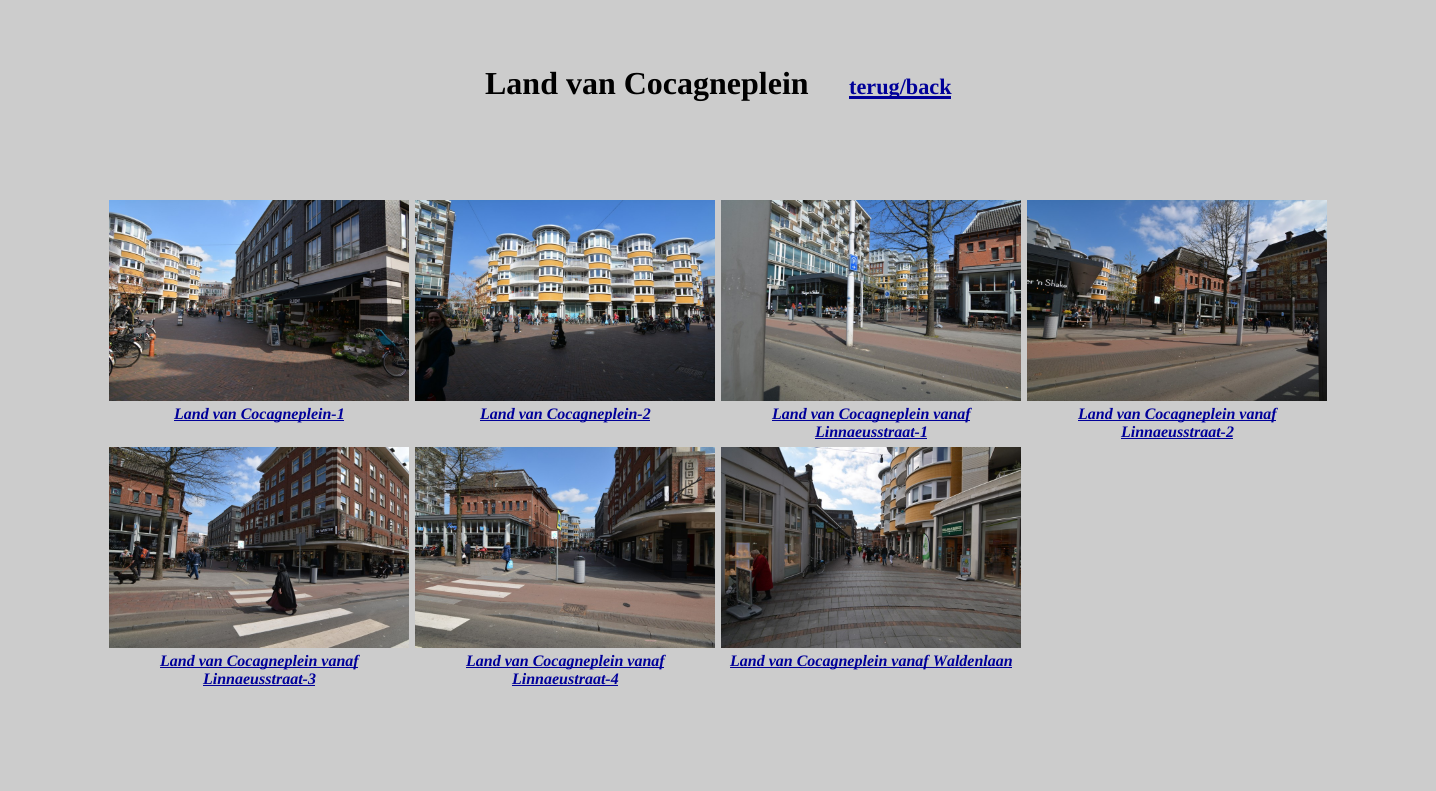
import math
import cairo



def draw_image(context, path, x, y, w, h):
    context.save()
    context.set_source_surface(cairo.ImageSurface.create_from_png(path), x, y)
    context.rectangle(x, y, w, h)
    context.fill()
    context.restore()


def draw(context):
    context.set_source_rgb(204 / 255, 204 / 255, 204 / 255)
    context.paint()
    context.set_source_rgb(0, 0, 153 / 255)
    context.rectangle(849, 96, 102, 3)
    context.fill()
    draw_image(context, "images/1.png", 109, 200, 300, 201)
    context.rectangle(174, 420, 170, 1)
    context.fill()
    draw_image(context, "images/2.png", 415, 200, 300, 201)
    context.rectangle(480, 420, 170, 1)
    context.fill()
    draw_image(context, "images/3.png", 721, 200, 300, 201)
    context.rectangle(772, 420, 198, 1)
    context.fill()
    context.rectangle(815, 438, 112, 1)
    context.fill()
    draw_image(context, "images/4.png", 1027, 200, 300, 201)
    context.rectangle(1078, 420, 198, 1)
    context.fill()
    context.rectangle(1121, 438, 112, 1)
    context.fill()
    draw_image(context, "images/5.png", 109, 447, 300, 201)
    context.rectangle(160, 667, 198, 1)
    context.fill()
    context.rectangle(203, 685, 112, 1)
    context.fill()
    draw_image(context, "images/6.png", 415, 447, 300, 201)
    context.rectangle(466, 667, 198, 1)
    context.fill()
    context.rectangle(512, 685, 106, 1)
    context.fill()
    draw_image(context, "images/7.png", 721, 447, 300, 201)
    context.rectangle(730, 667, 282, 1)
    context.fill()
    context.select_font_face("Liberation Serif", cairo.FontSlant.NORMAL, cairo.FontWeight.BOLD)
    context.set_font_size(32)
    context.set_source_rgb(0, 0, 0)
    context.move_to(485, 94)
    context.show_text("Land van Cocagneplein")
    context.set_font_size(22.25)
    context.set_source_rgb(0, 0, 153 / 255)
    context.move_to(849, 94)
    context.show_text("terug/back")
    context.select_font_face("Liberation Serif", cairo.FontSlant.ITALIC, cairo.FontWeight.BOLD)
    context.set_font_size(16)
    context.move_to(174, 419)
    context.show_text("Land van Cocagneplein-1")
    context.move_to(480, 419)
    context.show_text("Land van Cocagneplein-2")
    context.move_to(772, 419)
    context.show_text("Land van Cocagneplein vanaf")
    context.move_to(815, 437)
    context.show_text("Linnaeusstraat-1")
    context.move_to(1078, 419)
    context.show_text("Land van Cocagneplein vanaf")
    context.move_to(1121, 437)
    context.show_text("Linnaeusstraat-2")
    context.move_to(160, 666)
    context.show_text("Land van Cocagneplein vanaf")
    context.move_to(203, 684)
    context.show_text("Linnaeusstraat-3")
    context.move_to(466, 666)
    context.show_text("Land van Cocagneplein vanaf")
    context.move_to(512, 684)
    context.show_text("Linnaeustraat-4")
    context.move_to(730, 666)
    context.show_text("Land van Cocagneplein vanaf Waldenlaan")


surface = cairo.ImageSurface(cairo.Format.RGB24, 1436, 791)
context = cairo.Context(surface)
options = cairo.FontOptions()
options.set_hint_metrics(cairo.HintMetrics.OFF)
options.set_hint_style(cairo.HintStyle.NONE)
context.set_font_options(options)
context.set_miter_limit(4)
draw(context)
surface.write_to_png("out.png")
